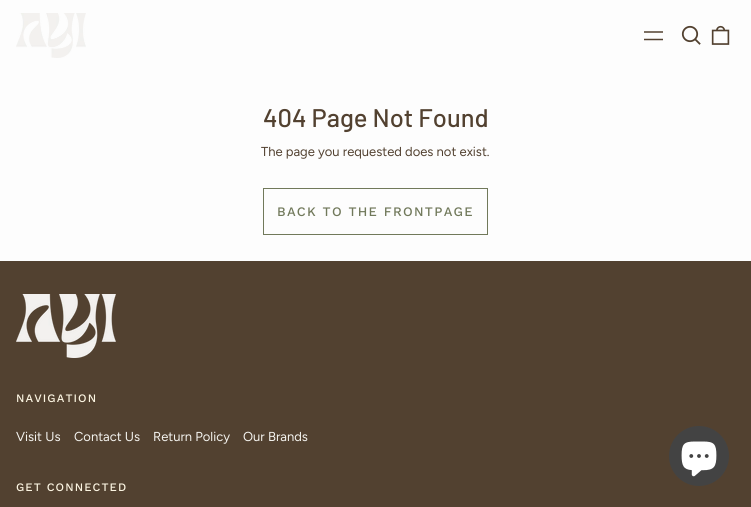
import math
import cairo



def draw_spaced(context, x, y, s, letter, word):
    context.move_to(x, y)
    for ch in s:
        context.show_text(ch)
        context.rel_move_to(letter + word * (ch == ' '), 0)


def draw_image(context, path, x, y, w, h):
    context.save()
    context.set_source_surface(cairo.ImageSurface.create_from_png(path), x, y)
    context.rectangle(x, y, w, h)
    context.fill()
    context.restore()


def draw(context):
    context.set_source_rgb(253 / 255, 253 / 255, 253 / 255)
    context.paint()
    draw_image(context, "images/1.png", 16, 13, 70, 45)
    draw_image(context, "images/2.png", 644, 31, 19, 10)
    draw_image(context, "images/3.png", 681, 25, 20, 20)
    draw_image(context, "images/4.png", 711, 25, 19, 20)
    context.rectangle(263.5, 188.5, 224, 46)
    context.set_source_rgb(113 / 255, 121 / 255, 91 / 255)
    context.set_line_width(1)
    context.stroke()
    context.set_source_rgb(82 / 255, 65 / 255, 48 / 255)
    context.rectangle(0, 261, 751, 246)
    context.fill()
    draw_image(context, "images/5.png", 16, 294, 100, 64)
    context.set_source_rgb(67 / 255, 67 / 255, 67 / 255)
    context.arc(699, 456, 30, 0, 2 * math.pi)
    context.fill()
    draw_image(context, "images/6.png", 681, 441, 36, 36)
    context.select_font_face("Barlow Medium")
    context.set_font_size(25.5)
    context.set_source_rgb(82 / 255, 65 / 255, 48 / 255)
    context.move_to(263, 127)
    context.show_text("404 Page Not Found")
    context.select_font_face("Figtree")
    context.set_font_size(13)
    context.move_to(261, 156)
    context.show_text("The page you requested does not exist.")
    context.select_font_face("Work Sans Medium")
    context.set_source_rgb(113 / 255, 121 / 255, 91 / 255)
    draw_spaced(context, 277, 216, "BACK TO THE FRONTPAGE", 1.3, 0)
    context.set_font_size(11.4)
    context.set_source_rgb(252 / 255, 245 / 255, 226 / 255)
    draw_spaced(context, 16, 402, "NAVIGATION", 1.1, 0)
    context.select_font_face("Figtree")
    context.set_font_size(13)
    context.set_source_rgb(244 / 255, 243 / 255, 239 / 255)
    context.move_to(16, 441)
    context.show_text("Visit Us")
    context.move_to(74, 441)
    context.show_text("Contact Us")
    context.move_to(153, 441)
    context.show_text("Return Policy")
    context.move_to(243, 441)
    context.show_text("Our Brands")
    context.select_font_face("Work Sans Medium")
    context.set_font_size(11.4)
    context.set_source_rgb(252 / 255, 245 / 255, 226 / 255)
    draw_spaced(context, 16, 491, "GET CONNECTED", 1.1, 0)


surface = cairo.ImageSurface(cairo.Format.RGB24, 751, 507)
context = cairo.Context(surface)
options = cairo.FontOptions()
options.set_hint_metrics(cairo.HintMetrics.OFF)
options.set_hint_style(cairo.HintStyle.NONE)
context.set_font_options(options)
context.set_miter_limit(4)
draw(context)
surface.write_to_png("out.png")
